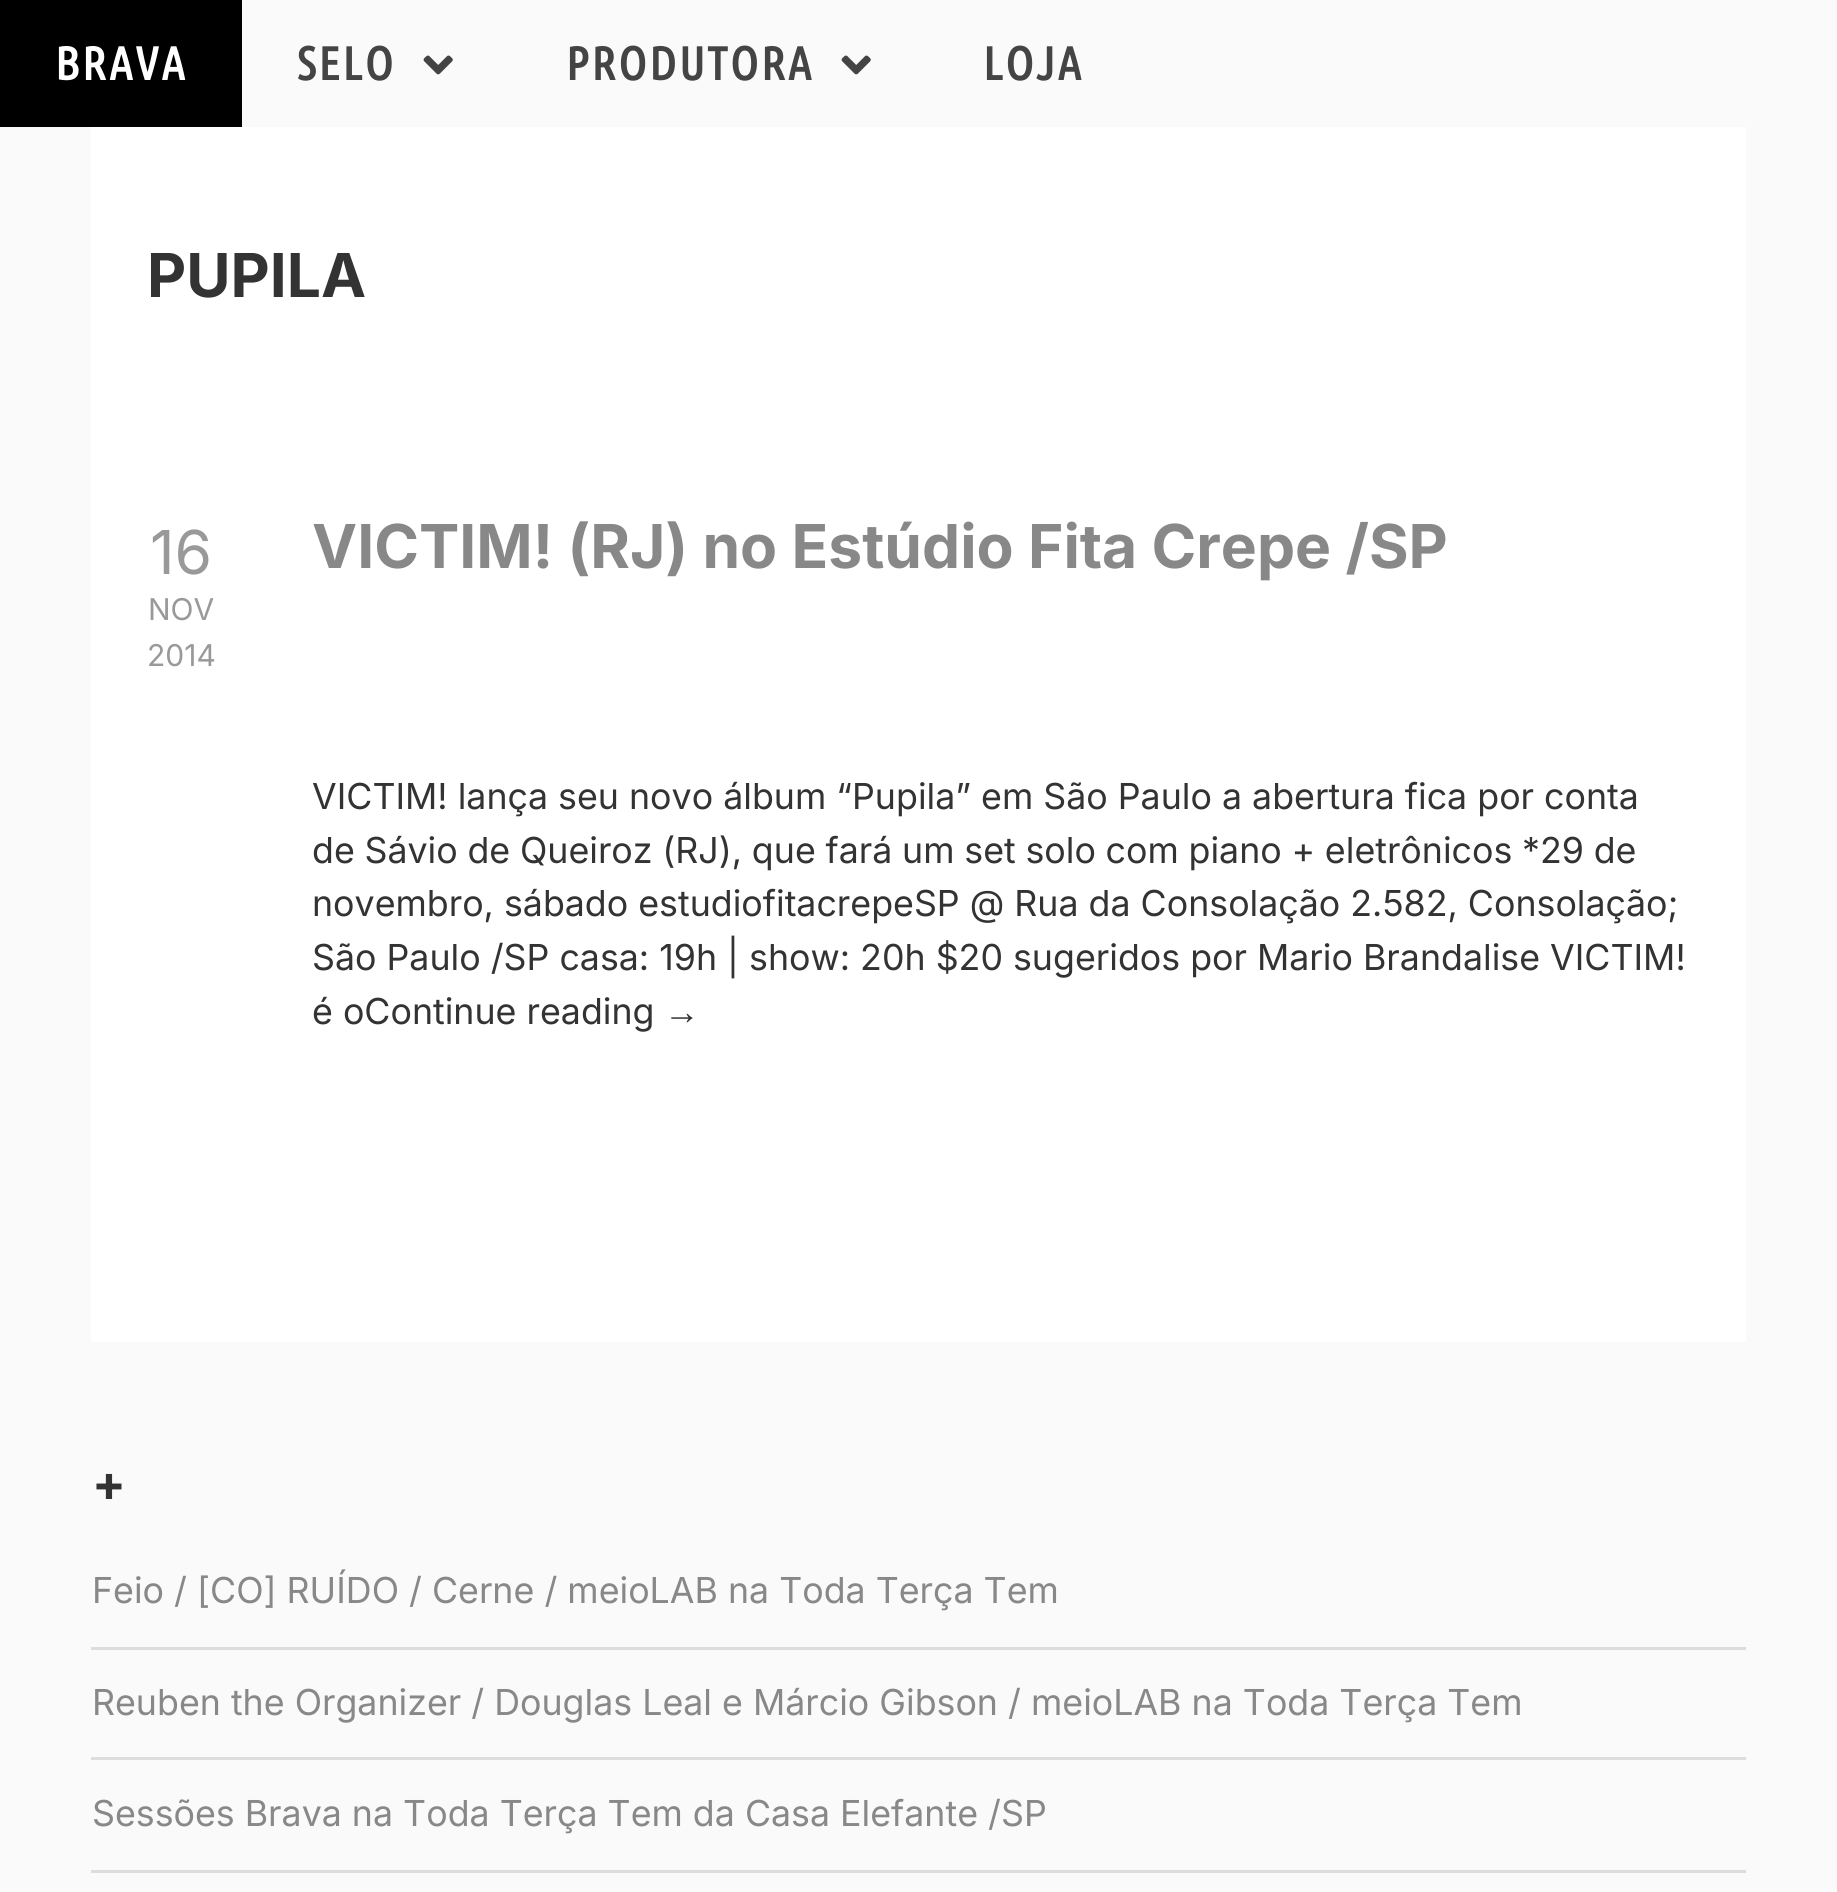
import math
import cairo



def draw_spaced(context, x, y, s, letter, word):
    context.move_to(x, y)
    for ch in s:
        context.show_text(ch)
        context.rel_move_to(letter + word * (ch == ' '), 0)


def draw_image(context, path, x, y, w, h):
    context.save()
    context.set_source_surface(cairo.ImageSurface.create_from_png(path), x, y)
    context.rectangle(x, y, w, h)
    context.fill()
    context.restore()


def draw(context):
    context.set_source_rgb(250 / 255, 250 / 255, 250 / 255)
    context.paint()
    context.set_source_rgb(0, 0, 0)
    context.rectangle(0, 0, 242, 127)
    context.fill()
    draw_image(context, "images/1.png", 423, 55, 30, 20)
    draw_image(context, "images/1.png", 841, 55, 30, 20)
    context.set_source_rgb(1, 1, 1)
    context.rectangle(91, 127, 1655, 1215)
    context.fill()
    context.set_source_rgb(221 / 255, 221 / 255, 221 / 255)
    context.rectangle(91, 1647, 1655, 3)
    context.fill()
    context.rectangle(91, 1757, 1655, 3)
    context.fill()
    context.rectangle(91, 1870, 1655, 3)
    context.fill()
    context.select_font_face("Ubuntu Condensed", cairo.FontSlant.NORMAL, cairo.FontWeight.BOLD)
    context.set_font_size(46.75)
    context.set_source_rgb(1, 1, 1)
    draw_spaced(context, 55, 80, "BRAVA", 2.75, 0)
    context.set_source_rgb(68 / 255, 68 / 255, 68 / 255)
    draw_spaced(context, 297, 80, "SELO", 2.75, 0)
    draw_spaced(context, 566, 80, "PRODUTORA", 2.75, 0)
    draw_spaced(context, 983, 80, "LOJA", 2.75, 0)
    context.select_font_face("Inter", cairo.FontSlant.NORMAL, cairo.FontWeight.BOLD)
    context.set_font_size(60.5)
    context.set_source_rgb(51 / 255, 51 / 255, 51 / 255)
    context.move_to(147, 297)
    context.show_text("PUPILA")
    context.select_font_face("Inter")
    context.set_source_rgb(153 / 255, 153 / 255, 153 / 255)
    context.move_to(150, 574)
    context.show_text("16")
    context.set_font_size(30)
    context.move_to(148, 620)
    context.show_text("NOV")
    context.move_to(147, 666)
    context.show_text("2014")
    context.select_font_face("Inter", cairo.FontSlant.NORMAL, cairo.FontWeight.BOLD)
    context.set_font_size(60.5)
    context.set_source_rgb(136 / 255, 136 / 255, 136 / 255)
    context.move_to(312, 568)
    context.show_text("VICTIM! (RJ) no Estúdio Fita Crepe /SP")
    context.select_font_face("Inter")
    context.set_font_size(35.75)
    context.set_source_rgb(51 / 255, 51 / 255, 51 / 255)
    context.move_to(312, 809)
    context.show_text("VICTIM! lança seu novo álbum “Pupila” em São Paulo a abertura fica por conta")
    draw_spaced(context, 312, 863, "de Sávio de Queiroz (RJ), que fará um set solo com piano + eletrônicos *29 de", 0, -0.3)
    context.move_to(312, 916)
    context.show_text("novembro, sábado estudiofitacrepeSP @ Rua da Consolação 2.582, Consolação;")
    context.move_to(312, 970)
    context.show_text("São Paulo /SP casa: 19h | show: 20h $20 sugeridos por Mario Brandalise VICTIM!")
    context.move_to(312, 1024)
    context.show_text("é oContinue reading")
    context.select_font_face("Liberation Sans")
    context.move_to(664, 1024)
    context.show_text("→")
    context.select_font_face("Inter", cairo.FontSlant.NORMAL, cairo.FontWeight.BOLD)
    context.set_font_size(50)
    context.move_to(92, 1501)
    context.show_text("+")
    context.select_font_face("Inter")
    context.set_font_size(35.75)
    context.set_source_rgb(136 / 255, 136 / 255, 136 / 255)
    context.move_to(92, 1603)
    context.show_text("Feio / [CO] RUÍDO / Cerne / meioLAB na Toda Terça Tem")
    context.move_to(92, 1715)
    context.show_text("Reuben the Organizer / Douglas Leal e Márcio Gibson / meioLAB na Toda Terça Tem")
    context.move_to(92, 1826)
    context.show_text("Sessões Brava na Toda Terça Tem da Casa Elefante /SP")


surface = cairo.ImageSurface(cairo.Format.RGB24, 1837, 1892)
context = cairo.Context(surface)
options = cairo.FontOptions()
options.set_hint_metrics(cairo.HintMetrics.OFF)
options.set_hint_style(cairo.HintStyle.NONE)
context.set_font_options(options)
context.set_miter_limit(4)
draw(context)
surface.write_to_png("out.png")
